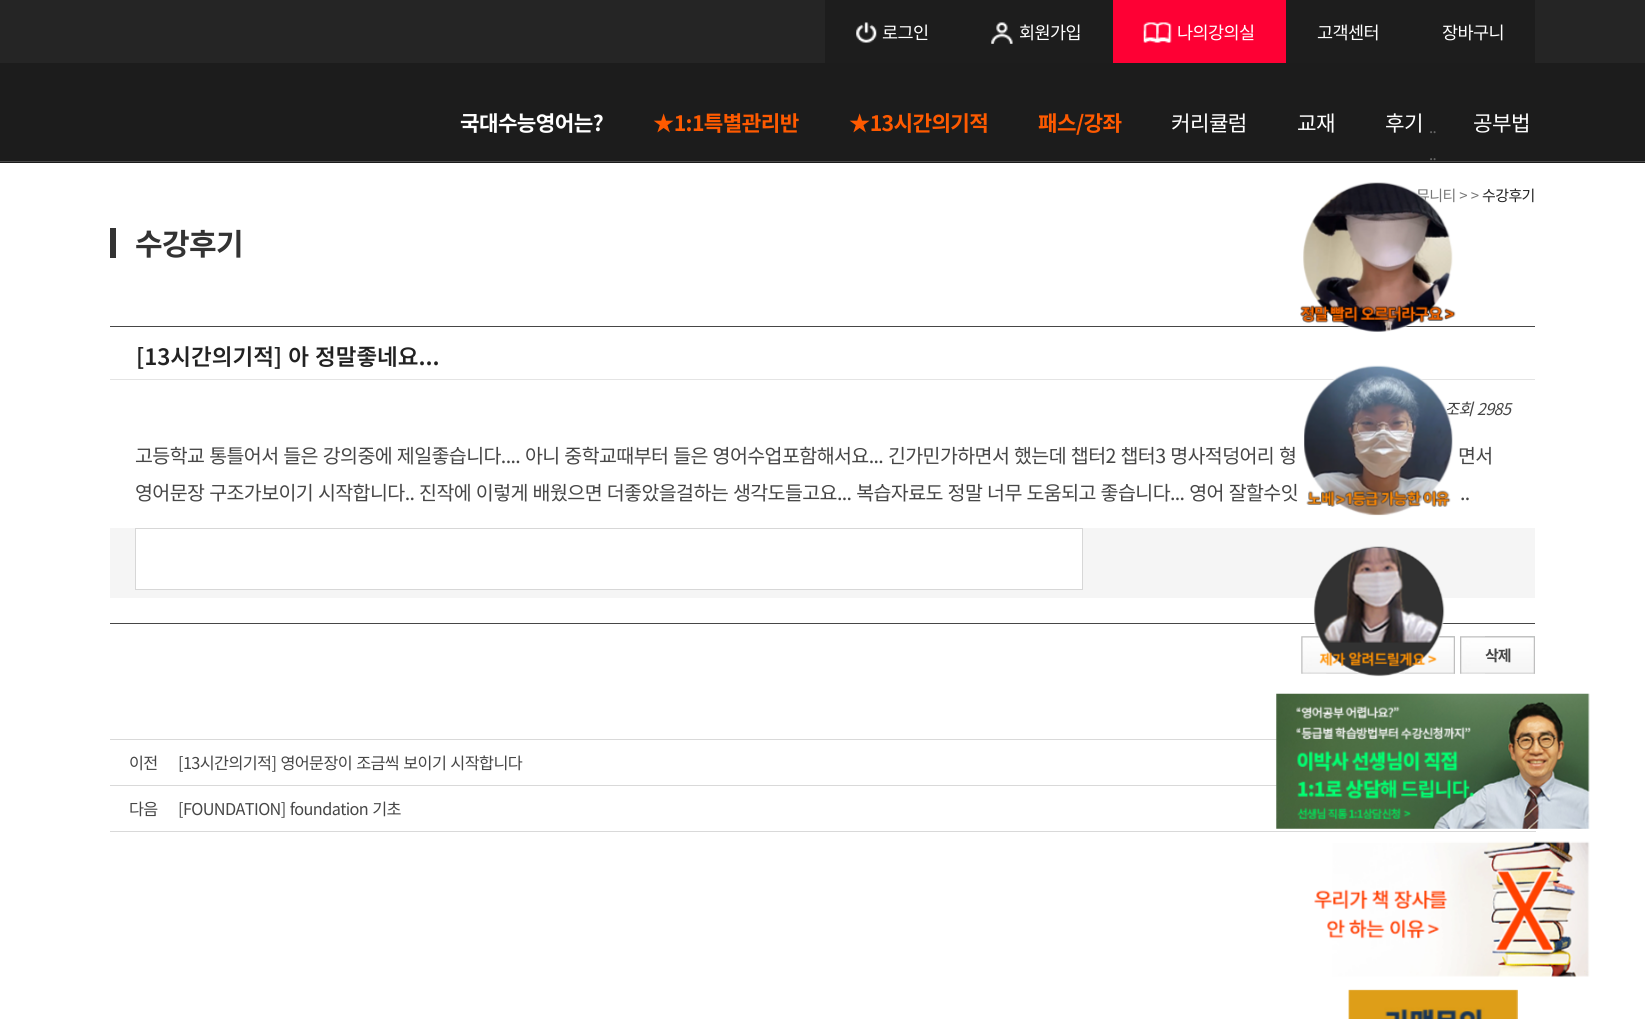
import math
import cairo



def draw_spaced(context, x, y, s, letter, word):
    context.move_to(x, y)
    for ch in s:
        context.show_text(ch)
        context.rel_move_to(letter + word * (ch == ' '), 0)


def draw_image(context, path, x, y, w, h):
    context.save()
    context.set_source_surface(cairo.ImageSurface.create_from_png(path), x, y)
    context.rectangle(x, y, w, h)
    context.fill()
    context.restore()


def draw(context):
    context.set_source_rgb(1, 1, 1)
    context.paint()
    context.set_source_rgb(37 / 255, 37 / 255, 37 / 255)
    context.rectangle(0, 0, 1645, 63)
    context.fill()
    context.set_source_rgb(28 / 255, 28 / 255, 28 / 255)
    context.rectangle(0, 63, 1645, 100)
    context.fill()
    context.set_source_rgb(74 / 255, 74 / 255, 74 / 255)
    context.rectangle(0, 161, 1645, 1)
    context.fill()
    context.set_source_rgb(29 / 255, 29 / 255, 29 / 255)
    context.rectangle(825, 0, 288, 63)
    context.fill()
    draw_image(context, "images/1.png", 856, 22, 21, 21)
    draw_image(context, "images/2.png", 991, 22, 22, 22)
    context.set_source_rgb(254 / 255, 0, 52 / 255)
    context.rectangle(1113, 0, 173, 63)
    context.fill()
    draw_image(context, "images/3.png", 1143, 22, 29, 21)
    context.set_source_rgb(29 / 255, 29 / 255, 29 / 255)
    context.rectangle(1286, 0, 249, 63)
    context.fill()
    context.set_source_rgb(70 / 255, 70 / 255, 70 / 255)
    context.rectangle(110, 623, 1425, 1)
    context.fill()
    context.set_source_rgb(245 / 255, 245 / 255, 245 / 255)
    context.rectangle(110, 528, 1425, 70)
    context.fill()
    draw_image(context, "images/10.png", 1301, 636, 65, 38)
    draw_image(context, "images/11.png", 1326, 647, 40, 27)
    draw_image(context, "images/12.png", 1392, 636, 63, 38)
    draw_image(context, "images/13.png", 1405, 636, 50, 38)
    draw_image(context, "images/6.png", 1313, 546, 132, 131)
    context.set_source_rgb(217 / 255, 217 / 255, 217 / 255)
    context.rectangle(110, 739, 1167, 1)
    context.fill()
    context.rectangle(110, 785, 1167, 1)
    context.fill()
    draw_image(context, "images/7.png", 1276, 693, 314, 136)
    draw_image(context, "images/8.png", 1314, 841, 276, 136)
    draw_image(context, "images/9.png", 1348, 989, 170, 30)
    context.set_source_rgb(51 / 255, 51 / 255, 51 / 255)
    context.rectangle(110, 228, 6, 30)
    context.fill()
    context.set_source_rgb(70 / 255, 70 / 255, 70 / 255)
    context.rectangle(110, 326, 1425, 1)
    context.fill()
    context.set_source_rgb(228 / 255, 228 / 255, 228 / 255)
    context.rectangle(110, 379, 1425, 1)
    context.fill()
    context.set_source_rgb(1, 1, 1)
    context.rectangle(135.5, 528.5, 947, 61)
    context.fill_preserve()
    context.set_source_rgb(215 / 255, 215 / 255, 215 / 255)
    context.set_line_width(1)
    context.stroke()
    draw_image(context, "images/14.png", 1460, 636, 75, 38)
    draw_image(context, "images/13.png", 1485, 636, 50, 38)
    context.set_source_rgb(217 / 255, 217 / 255, 217 / 255)
    context.rectangle(110, 831, 1426, 1)
    context.fill()
    context.select_font_face("Noto Sans KR")
    context.set_font_size(17.5)
    context.set_source_rgb(1, 1, 1)
    draw_spaced(context, 882, 39, "로그인", -0.6, 0)
    draw_spaced(context, 1019, 39, "회원가입", -0.6, 0)
    draw_spaced(context, 1177, 39, "나의강의실", -0.6, 0)
    draw_spaced(context, 1317, 39, "고객센터", -0.6, 0)
    draw_spaced(context, 1442, 39, "장바구니", -0.6, 0)
    context.select_font_face("Noto Sans KR", cairo.FontSlant.NORMAL, cairo.FontWeight.BOLD)
    context.set_font_size(21.25)
    draw_spaced(context, 460, 131, "국대수능영어는?", -0.6, 0)
    context.set_source_rgb(1, 90 / 255, 0)
    draw_spaced(context, 653, 131, "★1:1특별관리반", -0.6, 0)
    draw_spaced(context, 849, 131, "★13시간의기적", -0.6, 0)
    draw_spaced(context, 1038, 131, "패스/강좌", -0.6, 0)
    context.select_font_face("Noto Sans KR")
    context.set_source_rgb(1, 1, 1)
    draw_spaced(context, 1171, 131, "커리큘럼", -0.6, 0)
    draw_spaced(context, 1297, 131, "교재", -0.6, 0)
    draw_spaced(context, 1385, 131, "후기", -0.6, 0)
    draw_spaced(context, 1473, 131, "공부법", -0.6, 0)
    context.set_font_size(15)
    context.set_source_rgb(102 / 255, 102 / 255, 102 / 255)
    draw_spaced(context, 1429, 133, "..", -0.6, 0)
    draw_spaced(context, 1429, 160, "..", -0.6, 0)
    context.set_source_rgb(119 / 255, 119 / 255, 119 / 255)
    draw_spaced(context, 1416, 201, "뮤니티 > >", -0.6, 1)
    draw_image(context, "images/4.png", 1300, 182, 156, 150)
    context.set_source_rgb(34 / 255, 34 / 255, 34 / 255)
    draw_spaced(context, 1482, 201, "수강후기", -0.6, 0)
    context.select_font_face("Noto Sans KR", cairo.FontSlant.NORMAL, cairo.FontWeight.BOLD)
    context.set_font_size(30)
    context.set_source_rgb(51 / 255, 51 / 255, 51 / 255)
    draw_spaced(context, 135, 255, "수강후기", -0.6, 0)
    context.select_font_face("Noto Sans KR SemiBold")
    context.set_font_size(22.5)
    context.set_source_rgb(34 / 255, 34 / 255, 34 / 255)
    draw_spaced(context, 136, 365, "[13시간의기적] 아 정말좋네요...", 0, 1)
    context.select_font_face("Noto Sans KR", cairo.FontSlant.ITALIC)
    context.set_font_size(16.25)
    context.set_source_rgb(70 / 255, 70 / 255, 70 / 255)
    draw_spaced(context, 1444, 415, "조회 2985", -0.6, 1)
    draw_image(context, "images/5.png", 1303, 365, 151, 151)
    context.select_font_face("Noto Sans KR")
    context.set_font_size(19.5)
    draw_spaced(context, 135, 463, "고등학교 통틀어서 들은 강의중에 제일좋습니다.... 아니 중학교때부터 들은 영어수업포함해서요... 긴가민가하면서 했는데 챕터2 챕터3 명사적덩어리 형", -0.6, 1)
    draw_spaced(context, 1458, 463, "면서", -0.6, 1)
    draw_spaced(context, 135, 500, "영어문장 구조가보이기 시작합니다.. 진작에 이렇게 배웠으면 더좋았을걸하는 생각도들고요... 복습자료도 정말 너무 도움되고 좋습니다... 영어 잘할수잇", -0.6, 1)
    draw_spaced(context, 1460, 500, "..", -0.6, 1)
    context.select_font_face("Noto Sans KR", cairo.FontSlant.NORMAL, cairo.FontWeight.BOLD)
    context.set_font_size(15)
    draw_spaced(context, 1485, 661, "삭제", -1, 0)
    context.select_font_face("Noto Sans KR")
    context.set_font_size(16.25)
    draw_spaced(context, 129, 769, "이전", -0.6, 0)
    draw_spaced(context, 178, 769, "[13시간의기적] 영어문장이 조금씩 보이기 시작합니다", -0.6, 1)
    draw_spaced(context, 129, 815, "다음", -0.6, 0)
    draw_spaced(context, 178, 815, "[FOUNDATION] foundation 기초", -0.6, 1)


surface = cairo.ImageSurface(cairo.Format.RGB24, 1645, 1019)
context = cairo.Context(surface)
options = cairo.FontOptions()
options.set_hint_metrics(cairo.HintMetrics.OFF)
options.set_hint_style(cairo.HintStyle.NONE)
context.set_font_options(options)
context.set_miter_limit(4)
draw(context)
surface.write_to_png("out.png")
